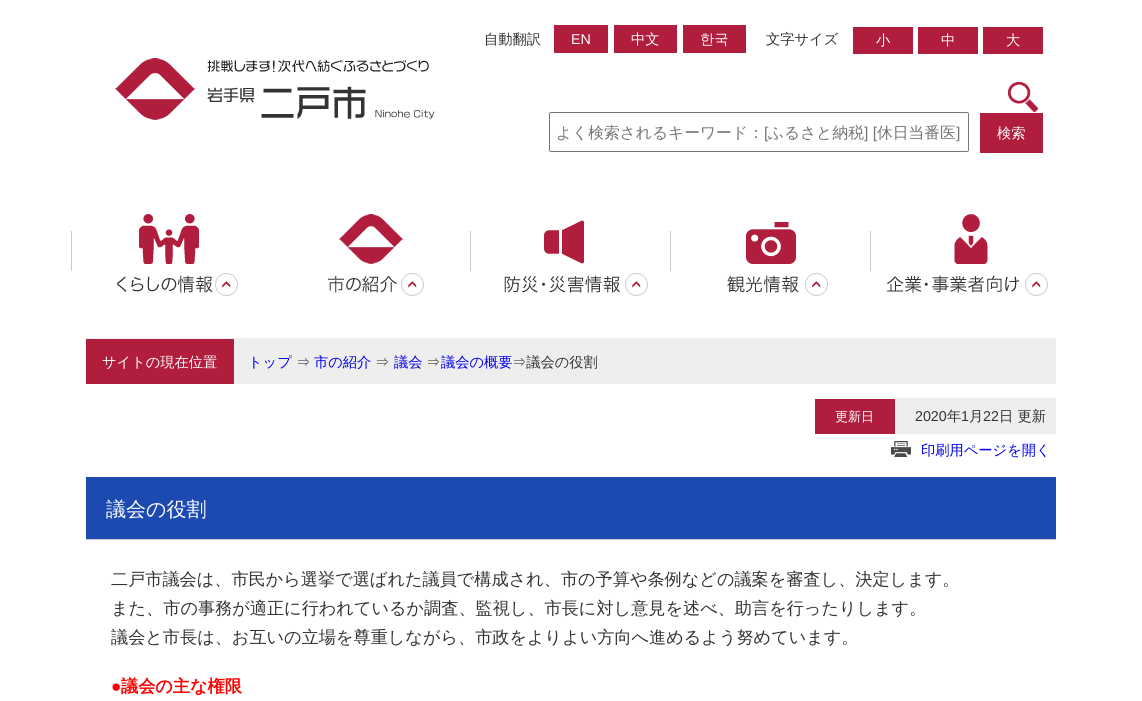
import math
import cairo



def rounded_rect(context, x, y, w, h, r):
    context.new_sub_path()
    for i, (u, v) in enumerate([(x + w - r, y + h - r), (x + r, y + h - r), (x + r, y + r), (x + w - r, y + r)]):
        context.arc(u, v, r, i * math.pi / 2, (i + 1) * math.pi / 2)
    context.close_path()


def draw_image(context, path, x, y, w, h):
    context.save()
    context.set_source_surface(cairo.ImageSurface.create_from_png(path), x, y)
    context.rectangle(x, y, w, h)
    context.fill()
    context.restore()


def draw(context):
    context.set_source_rgb(1, 1, 1)
    context.paint()
    draw_image(context, "images/1.png", 115, 58, 320, 62)
    context.set_source_rgb(177 / 255, 29 / 255, 61 / 255)
    context.rectangle(554, 25, 54, 28)
    context.fill()
    context.rectangle(614, 25, 63, 28)
    context.fill()
    context.rectangle(683, 25, 63, 28)
    context.fill()
    context.rectangle(853, 27, 60, 27)
    context.fill()
    context.rectangle(918, 27, 60, 27)
    context.fill()
    context.rectangle(983, 27, 60, 27)
    context.fill()
    draw_image(context, "images/2.png", 1008, 82, 30, 30)
    rounded_rect(context, 549.5, 112.5, 419, 39, 1.5)
    context.set_source_rgb(118 / 255, 118 / 255, 118 / 255)
    context.set_line_width(1)
    context.stroke()
    context.set_source_rgb(177 / 255, 29 / 255, 61 / 255)
    context.rectangle(980, 113, 63, 40)
    context.fill()
    draw_image(context, "images/3.png", 71, 214, 167, 82)
    draw_image(context, "images/4.png", 328, 214, 96, 82)
    draw_image(context, "images/5.png", 470, 220, 178, 76)
    draw_image(context, "images/6.png", 670, 222, 158, 74)
    draw_image(context, "images/7.png", 870, 214, 178, 82)
    context.set_source_rgb(238 / 255, 238 / 255, 238 / 255)
    context.rectangle(86, 338, 970, 46)
    context.fill()
    context.set_source_rgb(177 / 255, 29 / 255, 61 / 255)
    context.rectangle(86, 339, 148, 45)
    context.fill()
    context.rectangle(815, 399, 80, 35)
    context.fill()
    context.set_source_rgb(238 / 255, 238 / 255, 238 / 255)
    context.rectangle(895, 398, 161, 36)
    context.fill()
    draw_image(context, "images/8.png", 891, 441, 20, 16)
    context.set_source_rgb(204 / 255, 204 / 255, 204 / 255)
    context.rectangle(86, 539, 970, 1)
    context.fill()
    context.set_source_rgb(29 / 255, 74 / 255, 177 / 255)
    context.rectangle(86, 477, 970, 62)
    context.fill()
    context.select_font_face("WenQuanYi Zen Hei Medium")
    context.set_font_size(14.25)
    context.set_source_rgb(51 / 255, 51 / 255, 51 / 255)
    context.move_to(484, 44)
    context.show_text("自動翻訳")
    context.select_font_face("Liberation Sans")
    context.set_source_rgb(1, 1, 1)
    context.move_to(571, 44)
    context.show_text("EN")
    context.select_font_face("WenQuanYi Zen Hei Medium")
    context.move_to(631, 44)
    context.show_text("中文")
    context.move_to(700, 44)
    context.show_text("한국")
    context.set_source_rgb(51 / 255, 51 / 255, 51 / 255)
    context.move_to(766, 44)
    context.show_text("文字サイズ")
    context.set_source_rgb(1, 1, 1)
    context.move_to(876, 45)
    context.show_text("小")
    context.move_to(941, 45)
    context.show_text("中")
    context.move_to(1006, 45)
    context.show_text("大")
    context.set_font_size(15.75)
    context.set_source_rgb(117 / 255, 117 / 255, 117 / 255)
    context.move_to(556, 138)
    context.show_text("よく検索されるキーワード：")
    context.select_font_face("Liberation Sans")
    context.move_to(764, 138)
    context.show_text("[")
    context.select_font_face("WenQuanYi Zen Hei Medium")
    context.move_to(768, 138)
    context.show_text("ふるさと納税")
    context.select_font_face("Liberation Sans")
    context.move_to(864, 138)
    context.show_text("] [")
    context.select_font_face("WenQuanYi Zen Hei Medium")
    context.move_to(877, 138)
    context.show_text("休日当番医")
    context.select_font_face("Liberation Sans")
    context.move_to(956, 138)
    context.show_text("]")
    context.select_font_face("WenQuanYi Zen Hei Medium")
    context.set_font_size(14.25)
    context.set_source_rgb(1, 1, 1)
    context.move_to(997, 138)
    context.show_text("検索")
    context.move_to(102, 367)
    context.show_text("サイトの現在位置")
    context.set_source_rgb(0, 0, 238 / 255)
    context.move_to(248, 367)
    context.show_text("トップ")
    context.set_source_rgb(51 / 255, 51 / 255, 51 / 255)
    context.move_to(296, 367)
    context.show_text("⇒")
    context.set_source_rgb(0, 0, 238 / 255)
    context.move_to(314, 367)
    context.show_text("市の紹介")
    context.set_source_rgb(51 / 255, 51 / 255, 51 / 255)
    context.move_to(375, 367)
    context.show_text("⇒")
    context.set_source_rgb(0, 0, 238 / 255)
    context.move_to(394, 367)
    context.show_text("議会")
    context.set_source_rgb(51 / 255, 51 / 255, 51 / 255)
    context.move_to(426, 367)
    context.show_text("⇒")
    context.set_source_rgb(0, 0, 238 / 255)
    context.move_to(441, 367)
    context.show_text("議会の概要")
    context.set_source_rgb(51 / 255, 51 / 255, 51 / 255)
    context.move_to(512, 367)
    context.show_text("⇒議会の役割")
    context.set_font_size(13)
    context.set_source_rgb(1, 1, 1)
    context.move_to(835, 421)
    context.show_text("更新日")
    context.select_font_face("Liberation Sans")
    context.set_font_size(14.25)
    context.set_source_rgb(51 / 255, 51 / 255, 51 / 255)
    context.move_to(915, 421)
    context.show_text("2020")
    context.select_font_face("WenQuanYi Zen Hei Medium")
    context.move_to(947, 421)
    context.show_text("年")
    context.select_font_face("Liberation Sans")
    context.move_to(961, 421)
    context.show_text("1")
    context.select_font_face("WenQuanYi Zen Hei Medium")
    context.move_to(969, 421)
    context.show_text("月")
    context.select_font_face("Liberation Sans")
    context.move_to(983, 421)
    context.show_text("22")
    context.select_font_face("WenQuanYi Zen Hei Medium")
    context.move_to(999, 421)
    context.show_text("日 更新")
    context.set_source_rgb(0, 0, 238 / 255)
    context.move_to(921, 455)
    context.show_text("印刷用ページを開く")
    context.set_font_size(20)
    context.set_source_rgb(1, 1, 1)
    context.move_to(106, 516)
    context.show_text("議会の役割")
    context.set_font_size(17.15)
    context.set_source_rgb(51 / 255, 51 / 255, 51 / 255)
    context.move_to(111, 585)
    context.show_text("二戸市議会は、市民から選挙で選ばれた議員で構成され、市の予算や条例などの議案を審査し、決定します。")
    context.move_to(111, 614)
    context.show_text("また、市の事務が適正に行われているか調査、監視し、市長に対し意見を述べ、助言を行ったりします。")
    context.move_to(111, 643)
    context.show_text("議会と市長は、お互いの立場を尊重しながら、市政をよりよい方向へ進めるよう努めています。")
    context.select_font_face("Liberation Sans", cairo.FontSlant.NORMAL, cairo.FontWeight.BOLD)
    context.set_source_rgb(1, 0, 0)
    context.move_to(111, 692)
    context.show_text("●")
    context.select_font_face("WenQuanYi Zen Hei", cairo.FontSlant.NORMAL, cairo.FontWeight.BOLD)
    context.move_to(121, 692)
    context.show_text("議会の主な権限")


surface = cairo.ImageSurface(cairo.Format.RGB24, 1142, 701)
context = cairo.Context(surface)
options = cairo.FontOptions()
options.set_hint_metrics(cairo.HintMetrics.OFF)
options.set_hint_style(cairo.HintStyle.NONE)
context.set_font_options(options)
context.set_miter_limit(4)
draw(context)
surface.write_to_png("out.png")
